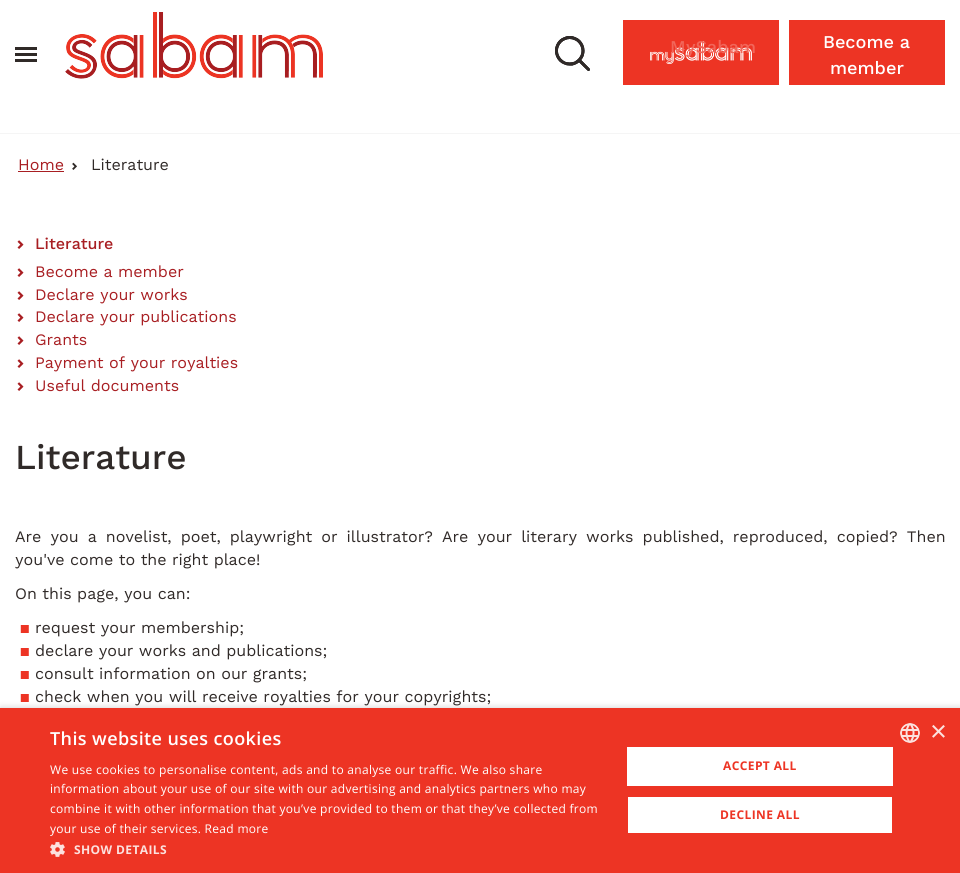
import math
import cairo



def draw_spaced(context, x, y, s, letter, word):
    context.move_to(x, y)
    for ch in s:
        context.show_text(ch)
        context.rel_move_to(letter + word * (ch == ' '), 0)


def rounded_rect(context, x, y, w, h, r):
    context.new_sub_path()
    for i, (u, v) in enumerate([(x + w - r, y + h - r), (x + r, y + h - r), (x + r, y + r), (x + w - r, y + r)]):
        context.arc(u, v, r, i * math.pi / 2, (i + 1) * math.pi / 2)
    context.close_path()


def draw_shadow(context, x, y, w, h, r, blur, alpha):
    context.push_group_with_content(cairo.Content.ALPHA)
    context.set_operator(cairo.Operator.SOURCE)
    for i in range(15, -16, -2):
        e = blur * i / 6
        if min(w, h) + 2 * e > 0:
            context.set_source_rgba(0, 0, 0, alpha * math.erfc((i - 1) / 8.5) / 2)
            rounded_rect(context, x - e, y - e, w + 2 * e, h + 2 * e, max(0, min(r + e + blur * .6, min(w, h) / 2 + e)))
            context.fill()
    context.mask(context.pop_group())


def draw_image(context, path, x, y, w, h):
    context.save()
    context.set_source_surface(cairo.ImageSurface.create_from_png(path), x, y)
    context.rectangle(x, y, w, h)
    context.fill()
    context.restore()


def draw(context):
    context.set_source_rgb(1, 1, 1)
    context.paint()
    context.set_source_rgb(48 / 255, 42 / 255, 40 / 255)
    context.rectangle(15, 47, 22, 3)
    context.fill()
    context.rectangle(15, 53, 22, 3)
    context.fill()
    context.rectangle(15, 59, 22, 3)
    context.fill()
    draw_image(context, "images/1.png", 65, 12, 258, 67)
    draw_image(context, "images/2.png", 555, 36, 35, 35)
    context.set_source_rgb(237 / 255, 52 / 255, 36 / 255)
    context.rectangle(623, 20, 156, 65)
    context.fill()
    draw_image(context, "images/3.png", 650, 41, 102, 23)
    context.rectangle(789, 20, 156, 65)
    context.fill()
    context.set_source_rgb(245 / 255, 245 / 255, 245 / 255)
    context.rectangle(0, 133, 960, 1)
    context.fill()
    context.set_source_rgb(168 / 255, 30 / 255, 34 / 255)
    context.rectangle(18, 171, 46, 1)
    context.fill()
    draw_image(context, "images/4.png", 72, 162, 5, 8)
    draw_image(context, "images/5.png", 17, 240, 7, 9)
    draw_image(context, "images/5.png", 17, 268, 7, 9)
    draw_image(context, "images/5.png", 17, 291, 7, 9)
    draw_image(context, "images/5.png", 17, 313, 7, 9)
    draw_image(context, "images/5.png", 17, 336, 7, 9)
    draw_image(context, "images/5.png", 17, 359, 7, 9)
    draw_image(context, "images/5.png", 17, 382, 7, 9)
    context.set_source_rgb(0, 0, 0)
    draw_shadow(context, 1, 710, 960, 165, 0, 4, 0.35)
    context.set_source_rgb(237 / 255, 52 / 255, 36 / 255)
    context.rectangle(0, 708, 960, 165)
    context.fill()
    draw_image(context, "images/6.png", 50, 842, 15, 15)
    context.set_source_rgb(1, 1, 1)
    context.rectangle(627, 747, 266, 39)
    context.fill()
    context.rectangle(628, 797, 264, 36)
    context.fill()
    draw_image(context, "images/7.png", 900, 723, 20, 20)
    context.select_font_face("Work Sans Medium")
    context.set_font_size(18)
    context.set_source_rgb(241 / 255, 102 / 255, 90 / 255)
    context.move_to(670, 53)
    context.show_text("MySabam")
    context.set_source_rgb(1, 1, 1)
    context.move_to(823, 48)
    context.show_text("Become a")
    context.move_to(830, 74)
    context.show_text("member")
    context.select_font_face("Work Sans")
    context.set_font_size(16)
    context.set_source_rgb(168 / 255, 30 / 255, 34 / 255)
    context.move_to(18, 170)
    context.show_text("Home")
    context.set_source_rgb(48 / 255, 42 / 255, 40 / 255)
    context.move_to(91, 170)
    context.show_text("Literature")
    context.select_font_face("Work Sans Medium")
    context.set_source_rgb(168 / 255, 30 / 255, 34 / 255)
    context.move_to(35, 249)
    context.show_text("Literature")
    context.select_font_face("Work Sans")
    context.move_to(35, 277)
    context.show_text("Become a member")
    context.move_to(35, 300)
    context.show_text("Declare your works")
    context.move_to(35, 322)
    context.show_text("Declare your publications")
    context.move_to(35, 345)
    context.show_text("Grants")
    context.move_to(35, 368)
    context.show_text("Payment of your royalties")
    context.move_to(35, 391)
    context.show_text("Useful documents")
    context.select_font_face("Work Sans Medium")
    context.set_font_size(35)
    context.set_source_rgb(48 / 255, 42 / 255, 40 / 255)
    context.move_to(15, 469)
    context.show_text("Literature")
    context.select_font_face("Work Sans")
    context.set_font_size(16)
    draw_spaced(context, 15, 542, "Are you a novelist, poet, playwright or illustrator? Are your literary works published, reproduced, copied? Then", 0, 3.6)
    context.move_to(15, 565)
    context.show_text("you've come to the right place!")
    context.move_to(15, 599)
    context.show_text("On this page, you can:")
    context.set_source_rgb(237 / 255, 52 / 255, 36 / 255)
    context.move_to(20, 633)
    context.show_text("▪")
    context.set_source_rgb(48 / 255, 42 / 255, 40 / 255)
    context.move_to(35, 633)
    context.show_text("request your membership;")
    context.set_source_rgb(237 / 255, 52 / 255, 36 / 255)
    context.move_to(20, 656)
    context.show_text("▪")
    context.set_source_rgb(48 / 255, 42 / 255, 40 / 255)
    context.move_to(35, 656)
    context.show_text("declare your works and publications;")
    context.set_source_rgb(237 / 255, 52 / 255, 36 / 255)
    context.move_to(20, 679)
    context.show_text("▪")
    context.set_source_rgb(48 / 255, 42 / 255, 40 / 255)
    context.move_to(35, 679)
    context.show_text("consult information on our grants;")
    context.set_source_rgb(237 / 255, 52 / 255, 36 / 255)
    context.move_to(20, 702)
    context.show_text("▪")
    context.set_source_rgb(48 / 255, 42 / 255, 40 / 255)
    context.move_to(35, 702)
    context.show_text("check when you will receive royalties for your copyrights;")
    context.select_font_face("Open Sans SemiBold")
    context.set_font_size(18)
    context.set_source_rgb(1, 1, 1)
    draw_spaced(context, 50, 745, "This website uses cookies", 0.4, 0)
    context.select_font_face("Open Sans")
    context.set_font_size(12)
    draw_spaced(context, 50, 774, "We use cookies to personalise content, ads and to analyse our traffic. We also share", 0.3, 0)
    draw_spaced(context, 50, 793, "information about your use of our site with our advertising and analytics partners who may", 0.3, 0)
    draw_spaced(context, 50, 813, "combine it with other information that you’ve provided to them or that they’ve collected from", 0.3, 0)
    draw_spaced(context, 50, 833, "your use of their services. Read more", 0.3, 0)
    context.select_font_face("Open Sans", cairo.FontSlant.NORMAL, cairo.FontWeight.BOLD)
    context.set_source_rgb(252 / 255, 225 / 255, 222 / 255)
    draw_spaced(context, 74, 854, "SHOW DETAILS", 0.4, 0)
    context.set_source_rgb(237 / 255, 52 / 255, 36 / 255)
    draw_spaced(context, 723, 770, "ACCEPT ALL", 0.4, 0)
    draw_spaced(context, 720, 819, "DECLINE ALL", 0.4, 0)
    context.select_font_face("Liberation Sans")
    context.set_font_size(29)
    context.set_source_rgb(252 / 255, 225 / 255, 222 / 255)
    context.move_to(930, 741)
    context.show_text("×")


surface = cairo.ImageSurface(cairo.Format.RGB24, 960, 873)
context = cairo.Context(surface)
options = cairo.FontOptions()
options.set_hint_metrics(cairo.HintMetrics.OFF)
options.set_hint_style(cairo.HintStyle.NONE)
context.set_font_options(options)
context.set_miter_limit(4)
draw(context)
surface.write_to_png("out.png")
